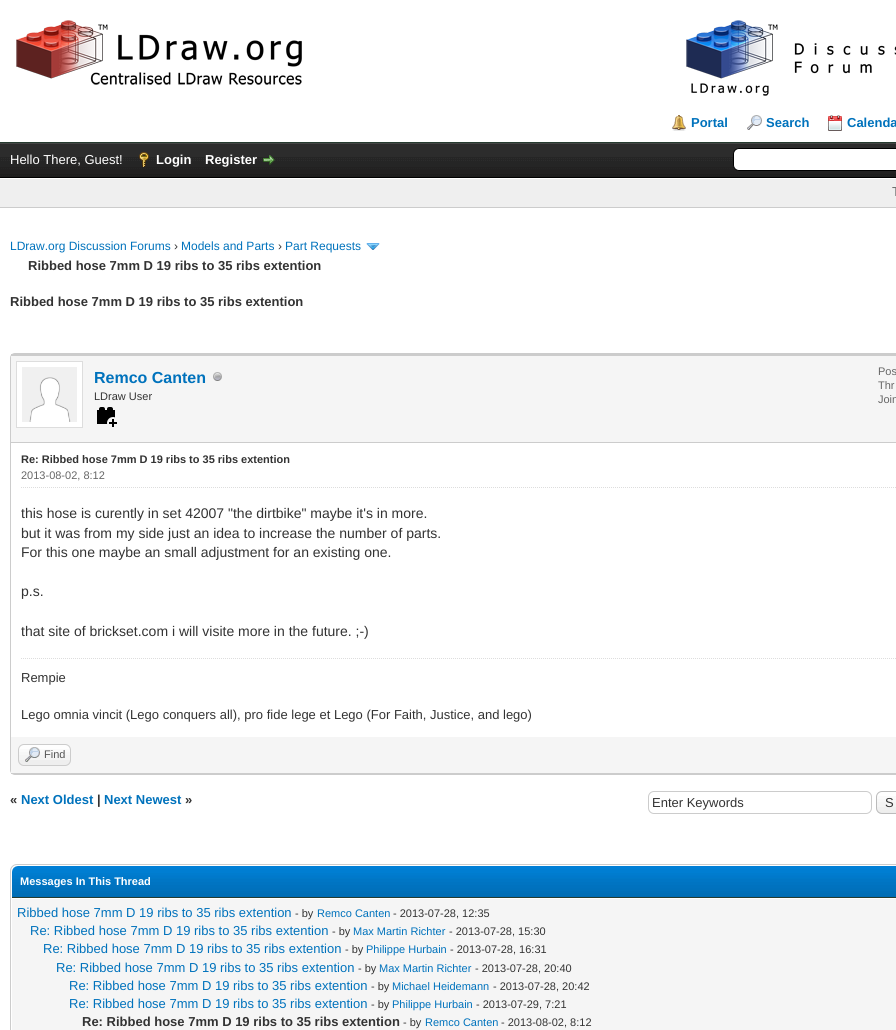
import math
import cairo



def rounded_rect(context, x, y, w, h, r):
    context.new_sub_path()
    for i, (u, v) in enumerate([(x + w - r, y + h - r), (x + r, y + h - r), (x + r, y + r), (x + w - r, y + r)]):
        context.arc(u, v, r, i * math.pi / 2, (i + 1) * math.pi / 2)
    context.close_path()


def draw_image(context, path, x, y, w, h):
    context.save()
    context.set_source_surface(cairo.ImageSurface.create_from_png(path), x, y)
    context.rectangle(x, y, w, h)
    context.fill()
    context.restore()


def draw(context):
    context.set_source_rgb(1, 1, 1)
    context.paint()
    context.set_source_rgb(38 / 255, 60 / 255, 48 / 255)
    context.rectangle(0, 142, 896, 1)
    context.fill()
    draw_image(context, "images/1.png", 16, 20, 286, 65)
    draw_image(context, "images/2.png", 686, 20, 210, 76)
    draw_image(context, "images/3.png", 672, 115, 14, 16)
    draw_image(context, "images/4.png", 747, 115, 15, 15)
    draw_image(context, "images/5.png", 828, 115, 14, 16)
    draw_image(context, "images/6.png", 0, 144, 896, 33)
    context.set_source_rgb(68 / 255, 68 / 255, 68 / 255)
    context.rectangle(0, 143, 896, 1)
    context.fill()
    context.set_source_rgb(0, 0, 0)
    context.rectangle(0, 177, 896, 1)
    context.fill()
    draw_image(context, "images/7.png", 139, 152, 10, 15)
    draw_image(context, "images/8.png", 263, 155, 12, 10)
    context.set_source_rgb(1, 1, 1)
    rounded_rect(context, 733.5, 148.5, 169, 22, 5.5)
    context.fill_preserve()
    context.set_source_rgb(0, 0, 0)
    context.set_line_width(1)
    context.stroke()
    context.set_source_rgb(239 / 255, 239 / 255, 239 / 255)
    context.rectangle(0, 179, 896, 28)
    context.fill()
    context.set_source_rgb(204 / 255, 204 / 255, 204 / 255)
    context.rectangle(0, 207, 896, 1)
    context.fill()
    draw_image(context, "images/9.png", 366, 243, 14, 7)
    rounded_rect(context, 10.5, 353.5, 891, 421, 4.5)
    context.stroke()
    context.set_source_rgb(245 / 255, 245 / 255, 245 / 255)
    context.rectangle(11, 356, 885, 86)
    context.fill()
    context.set_source_rgb(204 / 255, 204 / 255, 204 / 255)
    context.rectangle(11, 354, 885, 2)
    context.fill()
    context.rectangle(11, 442, 885, 1)
    context.fill()
    context.set_source_rgb(1, 1, 1)
    context.rectangle(16.5, 361.5, 66, 66)
    context.fill_preserve()
    context.set_source_rgb(221 / 255, 221 / 255, 221 / 255)
    context.stroke()
    draw_image(context, "images/10.png", 22, 367, 55, 55)
    draw_image(context, "images/11.png", 213, 372, 9, 9)
    draw_image(context, "images/12.png", 97, 407, 20, 20)
    context.new_path()
    context.move_to(21, 487.5)
    context.line_to(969, 487.5)
    context.set_dash([1, 1])
    context.stroke()
    context.new_path()
    context.move_to(21, 658.5)
    context.line_to(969, 658.5)
    context.stroke()
    context.set_source_rgb(245 / 255, 245 / 255, 245 / 255)
    context.rectangle(11, 737, 885, 36)
    context.fill()
    context.set_source_rgb(204 / 255, 204 / 255, 204 / 255)
    context.rectangle(11, 773, 885, 1)
    context.fill()
    context.set_source_rgb(238 / 255, 238 / 255, 238 / 255)
    rounded_rect(context, 18, 744, 53, 22, 6)
    context.fill()
    draw_image(context, "images/13.png", 18, 745, 53, 15)
    rounded_rect(context, 18.5, 744.5, 52, 21, 5.5)
    context.set_source_rgb(204 / 255, 204 / 255, 204 / 255)
    context.set_dash([])
    context.stroke()
    draw_image(context, "images/14.png", 25, 747, 15, 15)
    rounded_rect(context, 648.5, 791.5, 223, 22, 5.5)
    context.stroke()
    draw_image(context, "images/15.png", 876, 792, 20, 22)
    rounded_rect(context, 876.5, 791.5, 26, 22, 5.5)
    context.set_source_rgb(187 / 255, 187 / 255, 187 / 255)
    context.stroke()
    rounded_rect(context, 10.5, 864.5, 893, 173, 6.5)
    context.set_source_rgb(204 / 255, 204 / 255, 204 / 255)
    context.stroke()
    draw_image(context, "images/16.png", 12, 866, 884, 31)
    context.set_source_rgb(38 / 255, 60 / 255, 48 / 255)
    context.rectangle(12, 897, 884, 1)
    context.fill()
    context.set_source_rgb(245 / 255, 245 / 255, 245 / 255)
    context.rectangle(12, 899, 884, 131)
    context.fill()
    context.select_font_face("Liberation Sans", cairo.FontSlant.NORMAL, cairo.FontWeight.BOLD)
    context.set_font_size(13)
    context.set_source_rgb(0, 114 / 255, 188 / 255)
    context.move_to(691, 127)
    context.show_text("Portal")
    context.move_to(766, 127)
    context.show_text("Search")
    context.move_to(847, 127)
    context.show_text("Calenda")
    context.select_font_face("Liberation Sans")
    context.set_source_rgb(1, 1, 1)
    context.move_to(10, 164)
    context.show_text("Hello There, Guest!")
    context.select_font_face("Liberation Sans", cairo.FontSlant.NORMAL, cairo.FontWeight.BOLD)
    context.move_to(156, 164)
    context.show_text("Login")
    context.move_to(205, 164)
    context.show_text("Register")
    context.select_font_face("Liberation Sans")
    context.set_source_rgb(102 / 255, 102 / 255, 102 / 255)
    context.move_to(892, 196)
    context.show_text("T")
    context.set_font_size(12)
    context.set_source_rgb(0, 114 / 255, 188 / 255)
    context.move_to(10, 250)
    context.show_text("LDraw.org Discussion Forums")
    context.set_source_rgb(51 / 255, 51 / 255, 51 / 255)
    context.move_to(174, 250)
    context.show_text("›")
    context.set_source_rgb(0, 114 / 255, 188 / 255)
    context.move_to(181, 250)
    context.show_text("Models and Parts")
    context.set_source_rgb(51 / 255, 51 / 255, 51 / 255)
    context.move_to(278, 250)
    context.show_text("›")
    context.set_source_rgb(0, 114 / 255, 188 / 255)
    context.move_to(285, 250)
    context.show_text("Part Requests")
    context.select_font_face("Liberation Sans", cairo.FontSlant.NORMAL, cairo.FontWeight.BOLD)
    context.set_font_size(13)
    context.set_source_rgb(51 / 255, 51 / 255, 51 / 255)
    context.move_to(28, 270)
    context.show_text("Ribbed hose 7mm D 19 ribs to 35 ribs extention")
    context.move_to(10, 306)
    context.show_text("Ribbed hose 7mm D 19 ribs to 35 ribs extention")
    context.set_font_size(16)
    context.set_source_rgb(0, 114 / 255, 188 / 255)
    context.move_to(94, 383)
    context.show_text("Remco Canten")
    context.select_font_face("Liberation Sans")
    context.set_font_size(11)
    context.set_source_rgb(51 / 255, 51 / 255, 51 / 255)
    context.move_to(94, 400)
    context.show_text("LDraw User")
    context.set_source_rgb(102 / 255, 102 / 255, 102 / 255)
    context.move_to(878, 375)
    context.show_text("Pos")
    context.move_to(878, 389)
    context.show_text("Thr")
    context.move_to(878, 403)
    context.show_text("Join")
    context.select_font_face("Liberation Sans", cairo.FontSlant.NORMAL, cairo.FontWeight.BOLD)
    context.set_source_rgb(51 / 255, 51 / 255, 51 / 255)
    context.move_to(21, 463)
    context.show_text("Re: Ribbed hose 7mm D 19 ribs to 35 ribs extention")
    context.select_font_face("Liberation Sans")
    context.set_source_rgb(102 / 255, 102 / 255, 102 / 255)
    context.move_to(21, 479)
    context.show_text("2013-08-02, 8:12")
    context.set_font_size(14)
    context.set_source_rgb(51 / 255, 51 / 255, 51 / 255)
    context.move_to(21, 518)
    context.show_text("this hose is curently in set 42007 \"the dirtbike\" maybe it's in more.")
    context.move_to(21, 538)
    context.show_text("but it was from my side just an idea to increase the number of parts.")
    context.move_to(21, 557)
    context.show_text("For this one maybe an small adjustment for an existing one.")
    context.move_to(21, 596)
    context.show_text("p.s.")
    context.move_to(21, 636)
    context.show_text("that site of brickset.com i will visite more in the future. ;-)")
    context.set_font_size(13)
    context.move_to(21, 682)
    context.show_text("Rempie")
    context.move_to(21, 719)
    context.show_text("Lego omnia vincit (Lego conquers all), pro fide lege et Lego (For Faith, Justice, and lego)")
    context.set_font_size(11)
    context.set_source_rgb(85 / 255, 85 / 255, 85 / 255)
    context.move_to(44, 758)
    context.show_text("Find")
    context.select_font_face("Liberation Sans", cairo.FontSlant.NORMAL, cairo.FontWeight.BOLD)
    context.set_font_size(13)
    context.set_source_rgb(51 / 255, 51 / 255, 51 / 255)
    context.move_to(10, 804)
    context.show_text("«")
    context.set_source_rgb(0, 114 / 255, 188 / 255)
    context.move_to(21, 804)
    context.show_text("Next Oldest")
    context.set_source_rgb(51 / 255, 51 / 255, 51 / 255)
    context.move_to(97, 804)
    context.show_text("|")
    context.set_source_rgb(0, 114 / 255, 188 / 255)
    context.move_to(104, 804)
    context.show_text("Next Newest")
    context.set_source_rgb(51 / 255, 51 / 255, 51 / 255)
    context.move_to(185, 804)
    context.show_text("»")
    context.select_font_face("Liberation Sans")
    context.move_to(652, 807)
    context.show_text("Enter Keywords")
    context.move_to(885, 807)
    context.show_text("S")
    context.select_font_face("Liberation Sans", cairo.FontSlant.NORMAL, cairo.FontWeight.BOLD)
    context.set_font_size(11)
    context.set_source_rgb(1, 1, 1)
    context.move_to(20, 885)
    context.show_text("Messages In This Thread")
    context.select_font_face("Liberation Sans")
    context.set_font_size(13)
    context.set_source_rgb(0, 114 / 255, 188 / 255)
    context.move_to(17, 917)
    context.show_text("Ribbed hose 7mm D 19 ribs to 35 ribs extention")
    context.set_font_size(11)
    context.set_source_rgb(51 / 255, 51 / 255, 51 / 255)
    context.move_to(295, 917)
    context.show_text("- by")
    context.set_source_rgb(0, 114 / 255, 188 / 255)
    context.move_to(317, 917)
    context.show_text("Remco Canten")
    context.set_source_rgb(51 / 255, 51 / 255, 51 / 255)
    context.move_to(393, 917)
    context.show_text("- 2013-07-28, 12:35")
    context.set_font_size(13)
    context.set_source_rgb(0, 114 / 255, 188 / 255)
    context.move_to(30, 935)
    context.show_text("Re: Ribbed hose 7mm D 19 ribs to 35 ribs extention")
    context.set_font_size(11)
    context.set_source_rgb(51 / 255, 51 / 255, 51 / 255)
    context.move_to(332, 935)
    context.show_text("- by")
    context.set_source_rgb(0, 114 / 255, 188 / 255)
    context.move_to(353, 935)
    context.show_text("Max Martin Richter")
    context.set_source_rgb(51 / 255, 51 / 255, 51 / 255)
    context.move_to(449, 935)
    context.show_text("- 2013-07-28, 15:30")
    context.set_font_size(13)
    context.set_source_rgb(0, 114 / 255, 188 / 255)
    context.move_to(43, 953)
    context.show_text("Re: Ribbed hose 7mm D 19 ribs to 35 ribs extention")
    context.set_font_size(11)
    context.set_source_rgb(51 / 255, 51 / 255, 51 / 255)
    context.move_to(345, 953)
    context.show_text("- by")
    context.set_source_rgb(0, 114 / 255, 188 / 255)
    context.move_to(366, 953)
    context.show_text("Philippe Hurbain")
    context.set_source_rgb(51 / 255, 51 / 255, 51 / 255)
    context.move_to(450, 953)
    context.show_text("- 2013-07-28, 16:31")
    context.set_font_size(13)
    context.set_source_rgb(0, 114 / 255, 188 / 255)
    context.move_to(56, 972)
    context.show_text("Re: Ribbed hose 7mm D 19 ribs to 35 ribs extention")
    context.set_font_size(11)
    context.set_source_rgb(51 / 255, 51 / 255, 51 / 255)
    context.move_to(358, 972)
    context.show_text("- by")
    context.set_source_rgb(0, 114 / 255, 188 / 255)
    context.move_to(379, 972)
    context.show_text("Max Martin Richter")
    context.set_source_rgb(51 / 255, 51 / 255, 51 / 255)
    context.move_to(475, 972)
    context.show_text("- 2013-07-28, 20:40")
    context.set_font_size(13)
    context.set_source_rgb(0, 114 / 255, 188 / 255)
    context.move_to(69, 990)
    context.show_text("Re: Ribbed hose 7mm D 19 ribs to 35 ribs extention")
    context.set_font_size(11)
    context.set_source_rgb(51 / 255, 51 / 255, 51 / 255)
    context.move_to(371, 990)
    context.show_text("- by")
    context.set_source_rgb(0, 114 / 255, 188 / 255)
    context.move_to(392, 990)
    context.show_text("Michael Heidemann")
    context.set_source_rgb(51 / 255, 51 / 255, 51 / 255)
    context.move_to(493, 990)
    context.show_text("- 2013-07-28, 20:42")
    context.set_font_size(13)
    context.set_source_rgb(0, 114 / 255, 188 / 255)
    context.move_to(69, 1008)
    context.show_text("Re: Ribbed hose 7mm D 19 ribs to 35 ribs extention")
    context.set_font_size(11)
    context.set_source_rgb(51 / 255, 51 / 255, 51 / 255)
    context.move_to(371, 1008)
    context.show_text("- by")
    context.set_source_rgb(0, 114 / 255, 188 / 255)
    context.move_to(392, 1008)
    context.show_text("Philippe Hurbain")
    context.set_source_rgb(51 / 255, 51 / 255, 51 / 255)
    context.move_to(476, 1008)
    context.show_text("- 2013-07-29, 7:21")
    context.select_font_face("Liberation Sans", cairo.FontSlant.NORMAL, cairo.FontWeight.BOLD)
    context.set_font_size(13)
    context.move_to(82, 1026)
    context.show_text("Re: Ribbed hose 7mm D 19 ribs to 35 ribs extention")
    context.select_font_face("Liberation Sans")
    context.set_font_size(11)
    context.move_to(403, 1026)
    context.show_text("- by")
    context.set_source_rgb(0, 114 / 255, 188 / 255)
    context.move_to(425, 1026)
    context.show_text("Remco Canten")
    context.set_source_rgb(51 / 255, 51 / 255, 51 / 255)
    context.move_to(501, 1026)
    context.show_text("- 2013-08-02, 8:12")


surface = cairo.ImageSurface(cairo.Format.RGB24, 896, 1030)
context = cairo.Context(surface)
options = cairo.FontOptions()
options.set_hint_metrics(cairo.HintMetrics.OFF)
options.set_hint_style(cairo.HintStyle.NONE)
context.set_font_options(options)
context.set_miter_limit(4)
draw(context)
surface.write_to_png("out.png")
